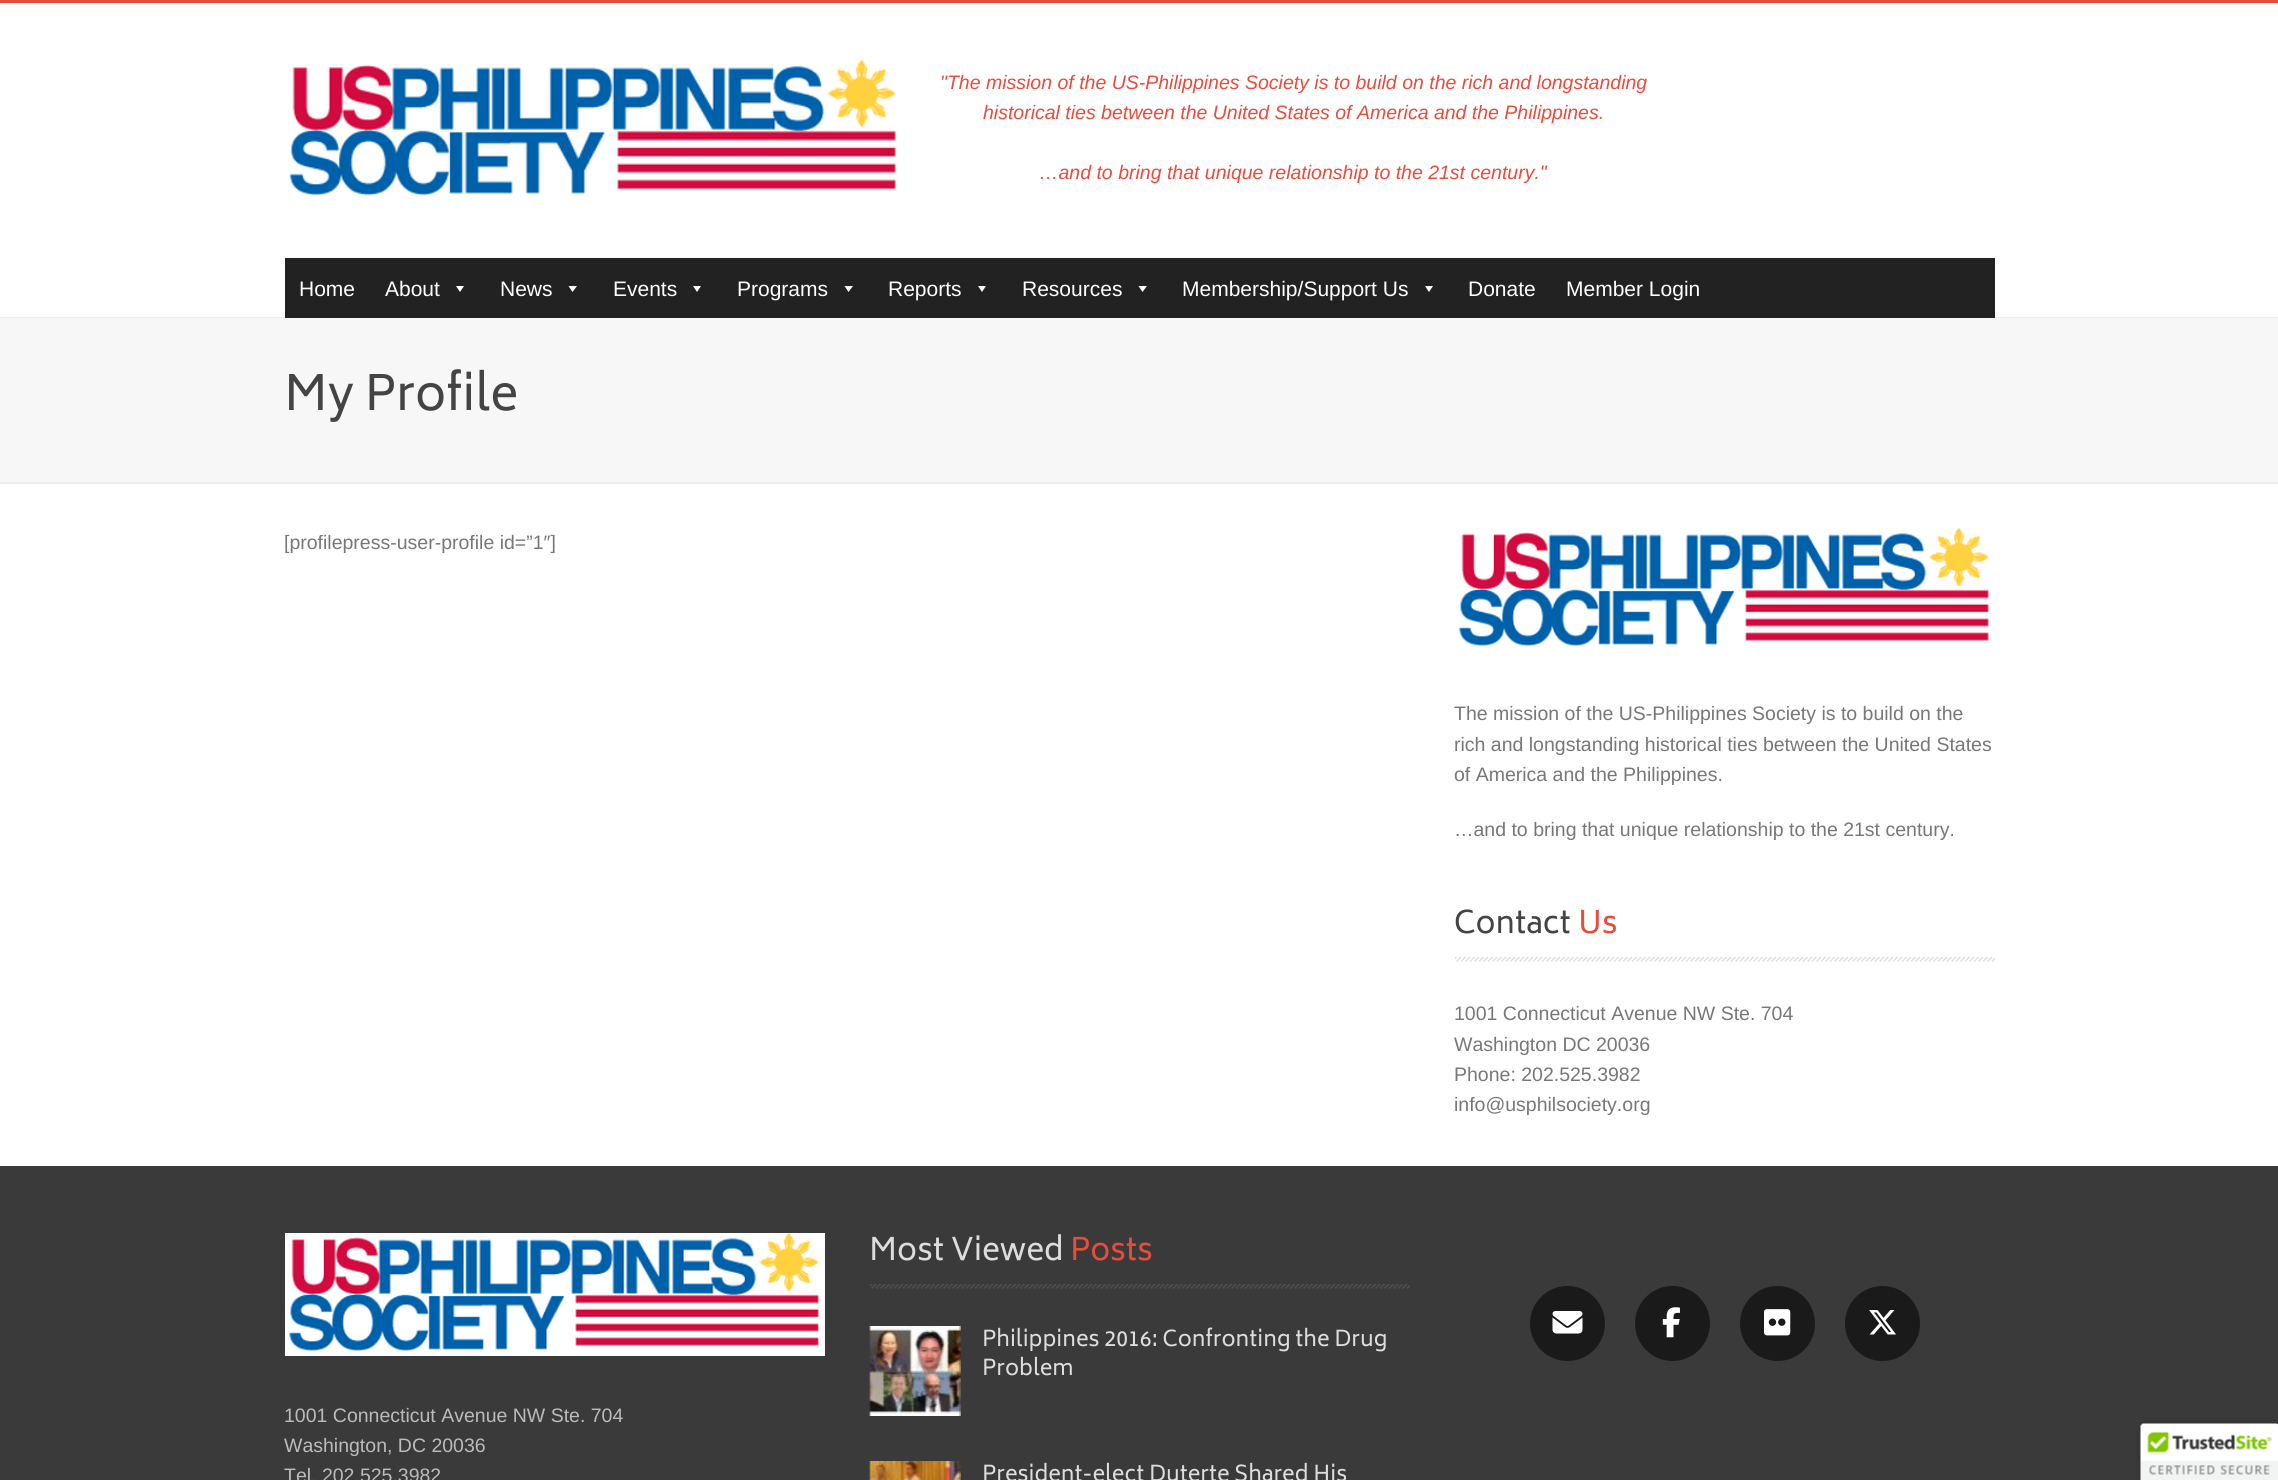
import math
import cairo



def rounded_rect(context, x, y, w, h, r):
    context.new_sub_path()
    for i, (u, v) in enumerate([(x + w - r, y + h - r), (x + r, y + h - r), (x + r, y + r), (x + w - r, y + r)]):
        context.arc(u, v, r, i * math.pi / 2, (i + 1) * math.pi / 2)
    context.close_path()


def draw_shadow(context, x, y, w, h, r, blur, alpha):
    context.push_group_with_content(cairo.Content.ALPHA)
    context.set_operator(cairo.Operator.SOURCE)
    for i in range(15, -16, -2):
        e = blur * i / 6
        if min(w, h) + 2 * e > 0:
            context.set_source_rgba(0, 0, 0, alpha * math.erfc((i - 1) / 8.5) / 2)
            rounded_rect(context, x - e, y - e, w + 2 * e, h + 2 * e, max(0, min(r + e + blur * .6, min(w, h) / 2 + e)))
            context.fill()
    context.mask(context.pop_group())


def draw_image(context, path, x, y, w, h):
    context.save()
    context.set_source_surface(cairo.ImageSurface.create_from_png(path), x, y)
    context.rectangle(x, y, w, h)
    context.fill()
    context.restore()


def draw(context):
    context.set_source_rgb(1, 1, 1)
    context.paint()
    context.set_source_rgb(231 / 255, 76 / 255, 60 / 255)
    context.rectangle(0, 0, 2278, 3)
    context.fill()
    draw_image(context, "images/1.png", 289, 60, 609, 137)
    context.set_source_rgb(238 / 255, 238 / 255, 238 / 255)
    context.rectangle(0, 317, 2278, 1)
    context.fill()
    context.set_source_rgb(34 / 255, 34 / 255, 34 / 255)
    context.rectangle(285, 258, 1710, 60)
    context.fill()
    context.set_source_rgb(1, 1, 1)
    context.new_path()
    context.move_to(464, 286)
    context.line_to(460, 292)
    context.line_to(456, 286)
    context.close_path()
    context.fill()
    context.new_path()
    context.move_to(577, 286)
    context.line_to(572.5, 292)
    context.line_to(568.5, 286)
    context.close_path()
    context.fill()
    context.new_path()
    context.move_to(701, 286)
    context.line_to(697, 292)
    context.line_to(693, 286)
    context.close_path()
    context.fill()
    context.new_path()
    context.move_to(853, 286)
    context.line_to(848.5, 292)
    context.line_to(844.5, 286)
    context.close_path()
    context.fill()
    context.new_path()
    context.move_to(986, 286)
    context.line_to(982, 292)
    context.line_to(978, 286)
    context.close_path()
    context.fill()
    context.new_path()
    context.move_to(1147, 286)
    context.line_to(1142.5, 292)
    context.line_to(1138.5, 286)
    context.close_path()
    context.fill()
    context.new_path()
    context.move_to(1433, 286)
    context.line_to(1429, 292)
    context.line_to(1425, 286)
    context.close_path()
    context.fill()
    context.set_source_rgb(247 / 255, 247 / 255, 247 / 255)
    context.rectangle(0, 318, 2278, 164)
    context.fill()
    context.set_source_rgb(238 / 255, 238 / 255, 238 / 255)
    context.rectangle(0, 482, 2278, 2)
    context.fill()
    draw_image(context, "images/2.png", 1458, 528, 533, 120)
    draw_image(context, "images/3.png", 1455, 957, 540, 5)
    context.set_source_rgb(58 / 255, 58 / 255, 58 / 255)
    context.rectangle(0, 1166, 2278, 314)
    context.fill()
    draw_image(context, "images/4.png", 870, 1284, 540, 5)
    draw_image(context, "images/5.png", 869, 1326, 92, 90)
    draw_image(context, "images/6.png", 869, 1461, 92, 19)
    context.set_source_rgb(26 / 255, 26 / 255, 26 / 255)
    context.arc(1567.5, 1323.5, 37.5, 0, 2 * math.pi)
    context.fill()
    draw_image(context, "images/7.png", 1552, 1311, 31, 23)
    context.arc(1672.5, 1323.5, 37.5, 0, 2 * math.pi)
    context.fill()
    draw_image(context, "images/8.png", 1662, 1307, 18, 31)
    context.arc(1777.5, 1323.5, 37.5, 0, 2 * math.pi)
    context.fill()
    draw_image(context, "images/9.png", 1764, 1309, 27, 27)
    context.arc(1882.5, 1323.5, 37.5, 0, 2 * math.pi)
    context.fill()
    draw_image(context, "images/10.png", 1869, 1310, 27, 25)
    draw_image(context, "images/11.png", 285, 1233, 540, 123)
    context.set_source_rgb(0, 0, 0)
    draw_shadow(context, 2141, 1424, 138, 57, 3, 4, 0.2)
    context.set_source_rgb(1, 1, 1)
    context.new_path()
    context.move_to(2144, 1424)
    context.line_to(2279, 1424)
    context.line_to(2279, 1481)
    context.line_to(2141, 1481)
    context.line_to(2141, 1427)
    context.curve_to(2141, 1425.5, 2142.5, 1424, 2144, 1424)
    context.close_path()
    context.fill()
    draw_image(context, "images/12.png", 2140, 1423, 138, 57)
    context.select_font_face("Liberation Sans", cairo.FontSlant.ITALIC)
    context.set_font_size(19.5)
    context.set_source_rgb(231 / 255, 76 / 255, 60 / 255)
    context.move_to(940, 89)
    context.show_text("\"The mission of the US-Philippines Society is to build on the rich and longstanding")
    context.move_to(983, 119)
    context.show_text("historical ties between the United States of America and the Philippines.")
    context.move_to(1039, 179)
    context.show_text("…and to bring that unique relationship to the 21st century.\"")
    context.select_font_face("Liberation Sans")
    context.set_font_size(21)
    context.set_source_rgb(1, 1, 1)
    context.move_to(299, 296)
    context.show_text("Home")
    context.move_to(385, 296)
    context.show_text("About")
    context.move_to(500, 296)
    context.show_text("News")
    context.move_to(613, 296)
    context.show_text("Events")
    context.move_to(737, 296)
    context.show_text("Programs")
    context.move_to(888, 296)
    context.show_text("Reports")
    context.move_to(1022, 296)
    context.show_text("Resources")
    context.move_to(1182, 296)
    context.show_text("Membership/Support Us")
    context.move_to(1468, 296)
    context.show_text("Donate")
    context.move_to(1566, 296)
    context.show_text("Member Login")
    context.select_font_face("Biryani")
    context.set_font_size(47.5)
    context.set_source_rgb(68 / 255, 68 / 255, 68 / 255)
    context.move_to(284, 410)
    context.show_text("My Profile")
    context.select_font_face("Liberation Sans")
    context.set_font_size(19.5)
    context.set_source_rgb(119 / 255, 119 / 255, 119 / 255)
    context.move_to(284, 549)
    context.show_text("[profilepress-user-profile id=”1″]")
    context.move_to(1454, 720)
    context.show_text("The mission of the US-Philippines Society is to build on the")
    context.move_to(1454, 751)
    context.show_text("rich and longstanding historical ties between the United States")
    context.move_to(1454, 781)
    context.show_text("of America and the Philippines.")
    context.move_to(1454, 836)
    context.show_text("…and to bring that unique relationship to the 21st century.")
    context.select_font_face("Biryani")
    context.set_font_size(30.5)
    context.set_source_rgb(68 / 255, 68 / 255, 68 / 255)
    context.move_to(1454, 933)
    context.show_text("Contact")
    context.set_source_rgb(231 / 255, 76 / 255, 60 / 255)
    context.move_to(1578, 933)
    context.show_text("Us")
    context.select_font_face("Liberation Sans")
    context.set_font_size(19.5)
    context.set_source_rgb(119 / 255, 119 / 255, 119 / 255)
    context.move_to(1454, 1020)
    context.show_text("1001 Connecticut Avenue NW Ste. 704")
    context.move_to(1454, 1051)
    context.show_text("Washington DC 20036")
    context.move_to(1454, 1081)
    context.show_text("Phone: 202.525.3982")
    context.move_to(1454, 1111)
    context.show_text("info@usphilsociety.org")
    context.select_font_face("Biryani")
    context.set_font_size(30.5)
    context.set_source_rgb(221 / 255, 221 / 255, 221 / 255)
    context.move_to(869, 1260)
    context.show_text("Most Viewed")
    context.set_source_rgb(231 / 255, 76 / 255, 60 / 255)
    context.move_to(1070, 1260)
    context.show_text("Posts")
    context.set_font_size(21.5)
    context.set_source_rgb(221 / 255, 221 / 255, 221 / 255)
    context.move_to(982, 1346)
    context.show_text("Philippines 2016: Confronting the Drug")
    context.move_to(982, 1375)
    context.show_text("Problem")
    context.move_to(982, 1481)
    context.show_text("President-elect Duterte Shared His")
    context.select_font_face("Liberation Sans")
    context.set_font_size(19.5)
    context.set_source_rgb(187 / 255, 187 / 255, 187 / 255)
    context.move_to(284, 1422)
    context.show_text("1001 Connecticut Avenue NW Ste. 704")
    context.move_to(284, 1452)
    context.show_text("Washington, DC 20036")
    context.move_to(284, 1482)
    context.show_text("Tel. 202.525.3982")


surface = cairo.ImageSurface(cairo.Format.RGB24, 2278, 1480)
context = cairo.Context(surface)
options = cairo.FontOptions()
options.set_hint_metrics(cairo.HintMetrics.OFF)
options.set_hint_style(cairo.HintStyle.NONE)
context.set_font_options(options)
context.set_miter_limit(4)
draw(context)
surface.write_to_png("out.png")
